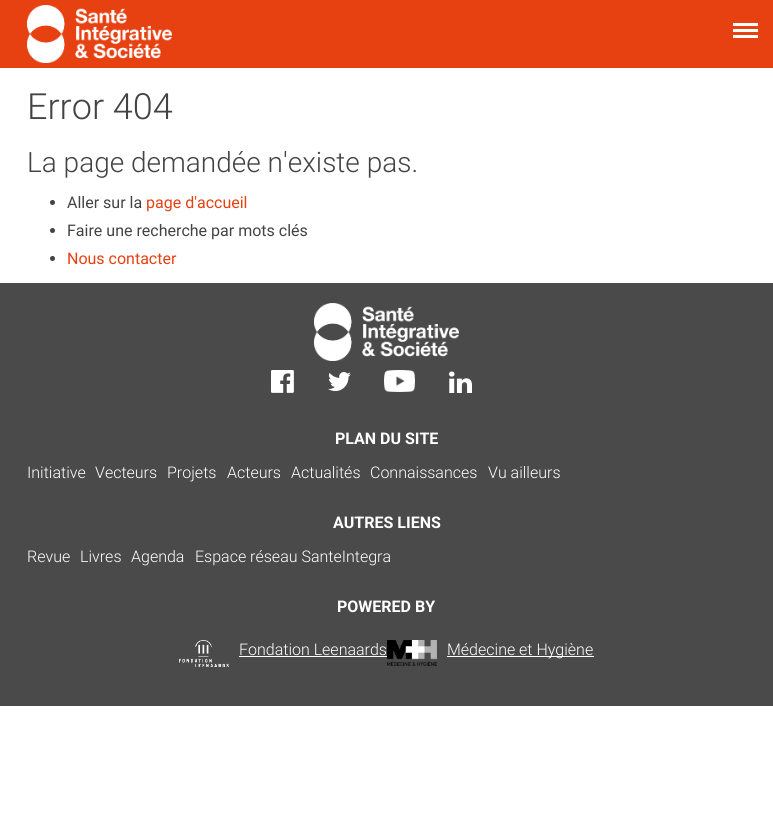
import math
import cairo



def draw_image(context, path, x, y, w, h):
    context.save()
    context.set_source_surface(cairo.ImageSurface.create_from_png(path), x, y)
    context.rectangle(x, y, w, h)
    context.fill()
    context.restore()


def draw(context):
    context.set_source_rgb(1, 1, 1)
    context.paint()
    context.set_source_rgb(231 / 255, 64 / 255, 17 / 255)
    context.rectangle(0, 0, 773, 68)
    context.fill()
    draw_image(context, "images/1.png", 27, 5, 145, 58)
    context.set_source_rgb(1, 1, 1)
    context.rectangle(733, 29, 25, 3)
    context.fill()
    context.rectangle(733, 23, 25, 3)
    context.fill()
    context.rectangle(733, 35, 25, 3)
    context.fill()
    context.set_source_rgb(67 / 255, 67 / 255, 67 / 255)
    context.arc(52.5, 202.5, 2.5, 0, 2 * math.pi)
    context.fill()
    context.arc(52.5, 230.5, 2.5, 0, 2 * math.pi)
    context.fill()
    context.arc(52.5, 258.5, 2.5, 0, 2 * math.pi)
    context.fill()
    context.set_source_rgb(74 / 255, 74 / 255, 74 / 255)
    context.rectangle(0, 283, 773, 423)
    context.fill()
    draw_image(context, "images/2.png", 314, 303, 145, 58)
    draw_image(context, "images/3.png", 271, 370, 23, 23)
    draw_image(context, "images/4.png", 328, 372, 23, 20)
    draw_image(context, "images/5.png", 384, 370, 31, 22)
    draw_image(context, "images/6.png", 449, 371, 23, 22)
    draw_image(context, "images/7.png", 179, 640, 50, 27)
    context.set_source_rgb(1, 1, 1)
    context.rectangle(239, 656, 148, 1)
    context.fill()
    draw_image(context, "images/8.png", 387, 640, 50, 26)
    context.rectangle(447, 656, 147, 1)
    context.fill()
    context.select_font_face("Roboto Light")
    context.set_font_size(36)
    context.set_source_rgb(67 / 255, 67 / 255, 67 / 255)
    context.move_to(27, 119)
    context.show_text("Error 404")
    context.set_font_size(28)
    context.move_to(27, 172)
    context.show_text("La page demandée n'existe pas.")
    context.select_font_face("Roboto")
    context.set_font_size(16)
    context.move_to(67, 208)
    context.show_text("Aller sur la")
    context.set_source_rgb(231 / 255, 64 / 255, 17 / 255)
    context.move_to(146, 208)
    context.show_text("page d'accueil")
    context.set_source_rgb(67 / 255, 67 / 255, 67 / 255)
    context.move_to(67, 236)
    context.show_text("Faire une recherche par mots clés")
    context.set_source_rgb(231 / 255, 64 / 255, 17 / 255)
    context.move_to(67, 264)
    context.show_text("Nous contacter")
    context.select_font_face("Roboto", cairo.FontSlant.NORMAL, cairo.FontWeight.BOLD)
    context.set_source_rgb(1, 1, 1)
    context.move_to(335, 444)
    context.show_text("PLAN DU SITE")
    context.select_font_face("Roboto Light")
    context.move_to(27, 478)
    context.show_text("Initiative")
    context.move_to(95, 478)
    context.show_text("Vecteurs")
    context.move_to(167, 478)
    context.show_text("Projets")
    context.move_to(227, 478)
    context.show_text("Acteurs")
    context.move_to(291, 478)
    context.show_text("Actualités")
    context.move_to(370, 478)
    context.show_text("Connaissances")
    context.move_to(488, 478)
    context.show_text("Vu ailleurs")
    context.select_font_face("Roboto", cairo.FontSlant.NORMAL, cairo.FontWeight.BOLD)
    context.move_to(333, 528)
    context.show_text("AUTRES LIENS")
    context.select_font_face("Roboto Light")
    context.move_to(27, 562)
    context.show_text("Revue")
    context.move_to(80, 562)
    context.show_text("Livres")
    context.move_to(131, 562)
    context.show_text("Agenda")
    context.move_to(195, 562)
    context.show_text("Espace réseau SanteIntegra")
    context.select_font_face("Roboto", cairo.FontSlant.NORMAL, cairo.FontWeight.BOLD)
    context.move_to(337, 612)
    context.show_text("POWERED BY")
    context.select_font_face("Roboto Light")
    context.move_to(239, 655)
    context.show_text("Fondation Leenaards")
    context.move_to(447, 655)
    context.show_text("Médecine et Hygiène")


surface = cairo.ImageSurface(cairo.Format.RGB24, 773, 838)
context = cairo.Context(surface)
options = cairo.FontOptions()
options.set_hint_metrics(cairo.HintMetrics.OFF)
options.set_hint_style(cairo.HintStyle.NONE)
context.set_font_options(options)
context.set_miter_limit(4)
draw(context)
surface.write_to_png("out.png")
